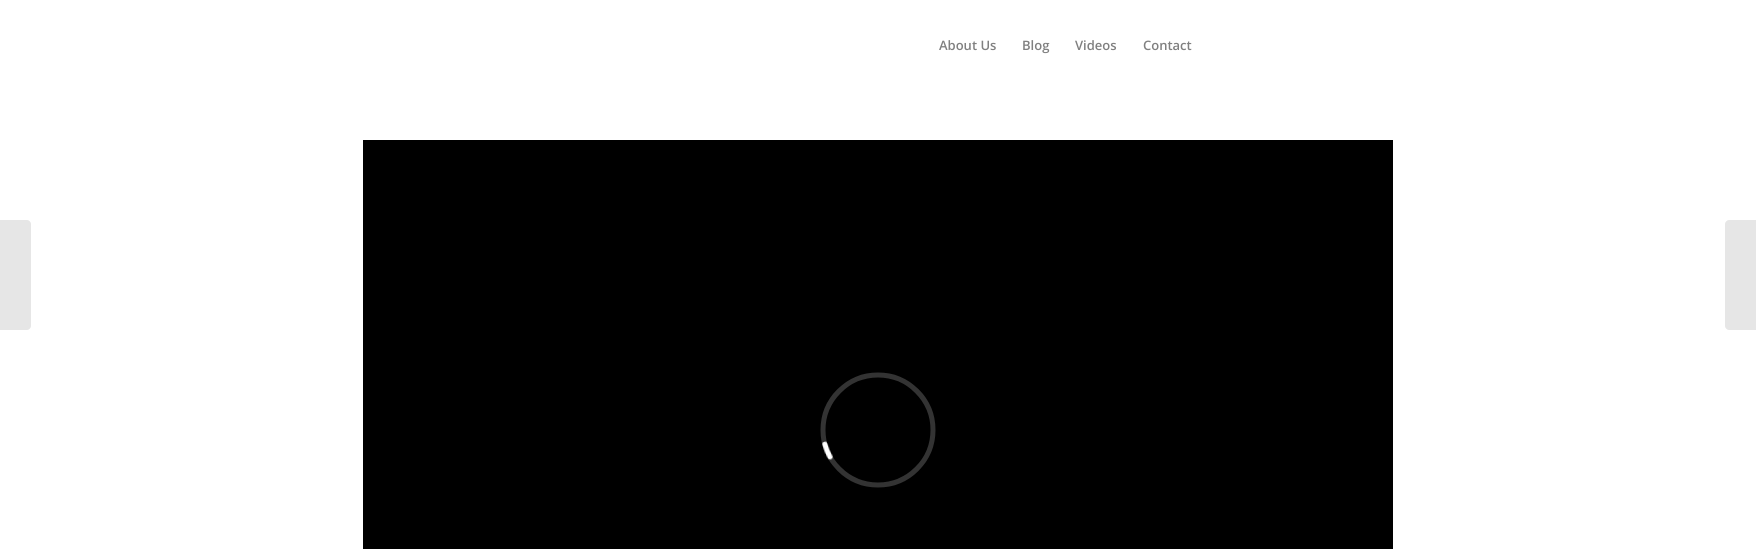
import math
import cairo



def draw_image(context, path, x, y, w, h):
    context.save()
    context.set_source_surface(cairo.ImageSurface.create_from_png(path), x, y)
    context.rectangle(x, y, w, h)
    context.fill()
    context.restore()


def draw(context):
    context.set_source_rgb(1, 1, 1)
    context.paint()
    context.set_source_rgb(230 / 255, 230 / 255, 230 / 255)
    context.new_path()
    context.move_to(0, 220)
    context.line_to(27, 220)
    context.curve_to(29, 220, 31, 222, 31, 224)
    context.line_to(31, 326)
    context.curve_to(31, 328, 29, 330, 27, 330)
    context.line_to(0, 330)
    context.close_path()
    context.fill()
    draw_image(context, "images/1.png", 363, 140, 1030, 409)
    context.new_path()
    context.move_to(1729, 220)
    context.line_to(1756, 220)
    context.line_to(1756, 330)
    context.line_to(1729, 330)
    context.curve_to(1727, 330, 1725, 328, 1725, 326)
    context.line_to(1725, 224)
    context.curve_to(1725, 222, 1727, 220, 1729, 220)
    context.close_path()
    context.fill()
    context.select_font_face("Open Sans SemiBold")
    context.set_font_size(13)
    context.set_source_rgb(128 / 255, 128 / 255, 128 / 255)
    context.move_to(939, 50)
    context.show_text("About Us")
    context.move_to(1022, 50)
    context.show_text("Blog")
    context.move_to(1075, 50)
    context.show_text("Videos")
    context.move_to(1143, 50)
    context.show_text("Contact")


surface = cairo.ImageSurface(cairo.Format.RGB24, 1756, 549)
context = cairo.Context(surface)
options = cairo.FontOptions()
options.set_hint_metrics(cairo.HintMetrics.OFF)
options.set_hint_style(cairo.HintStyle.NONE)
context.set_font_options(options)
context.set_miter_limit(4)
draw(context)
surface.write_to_png("out.png")
